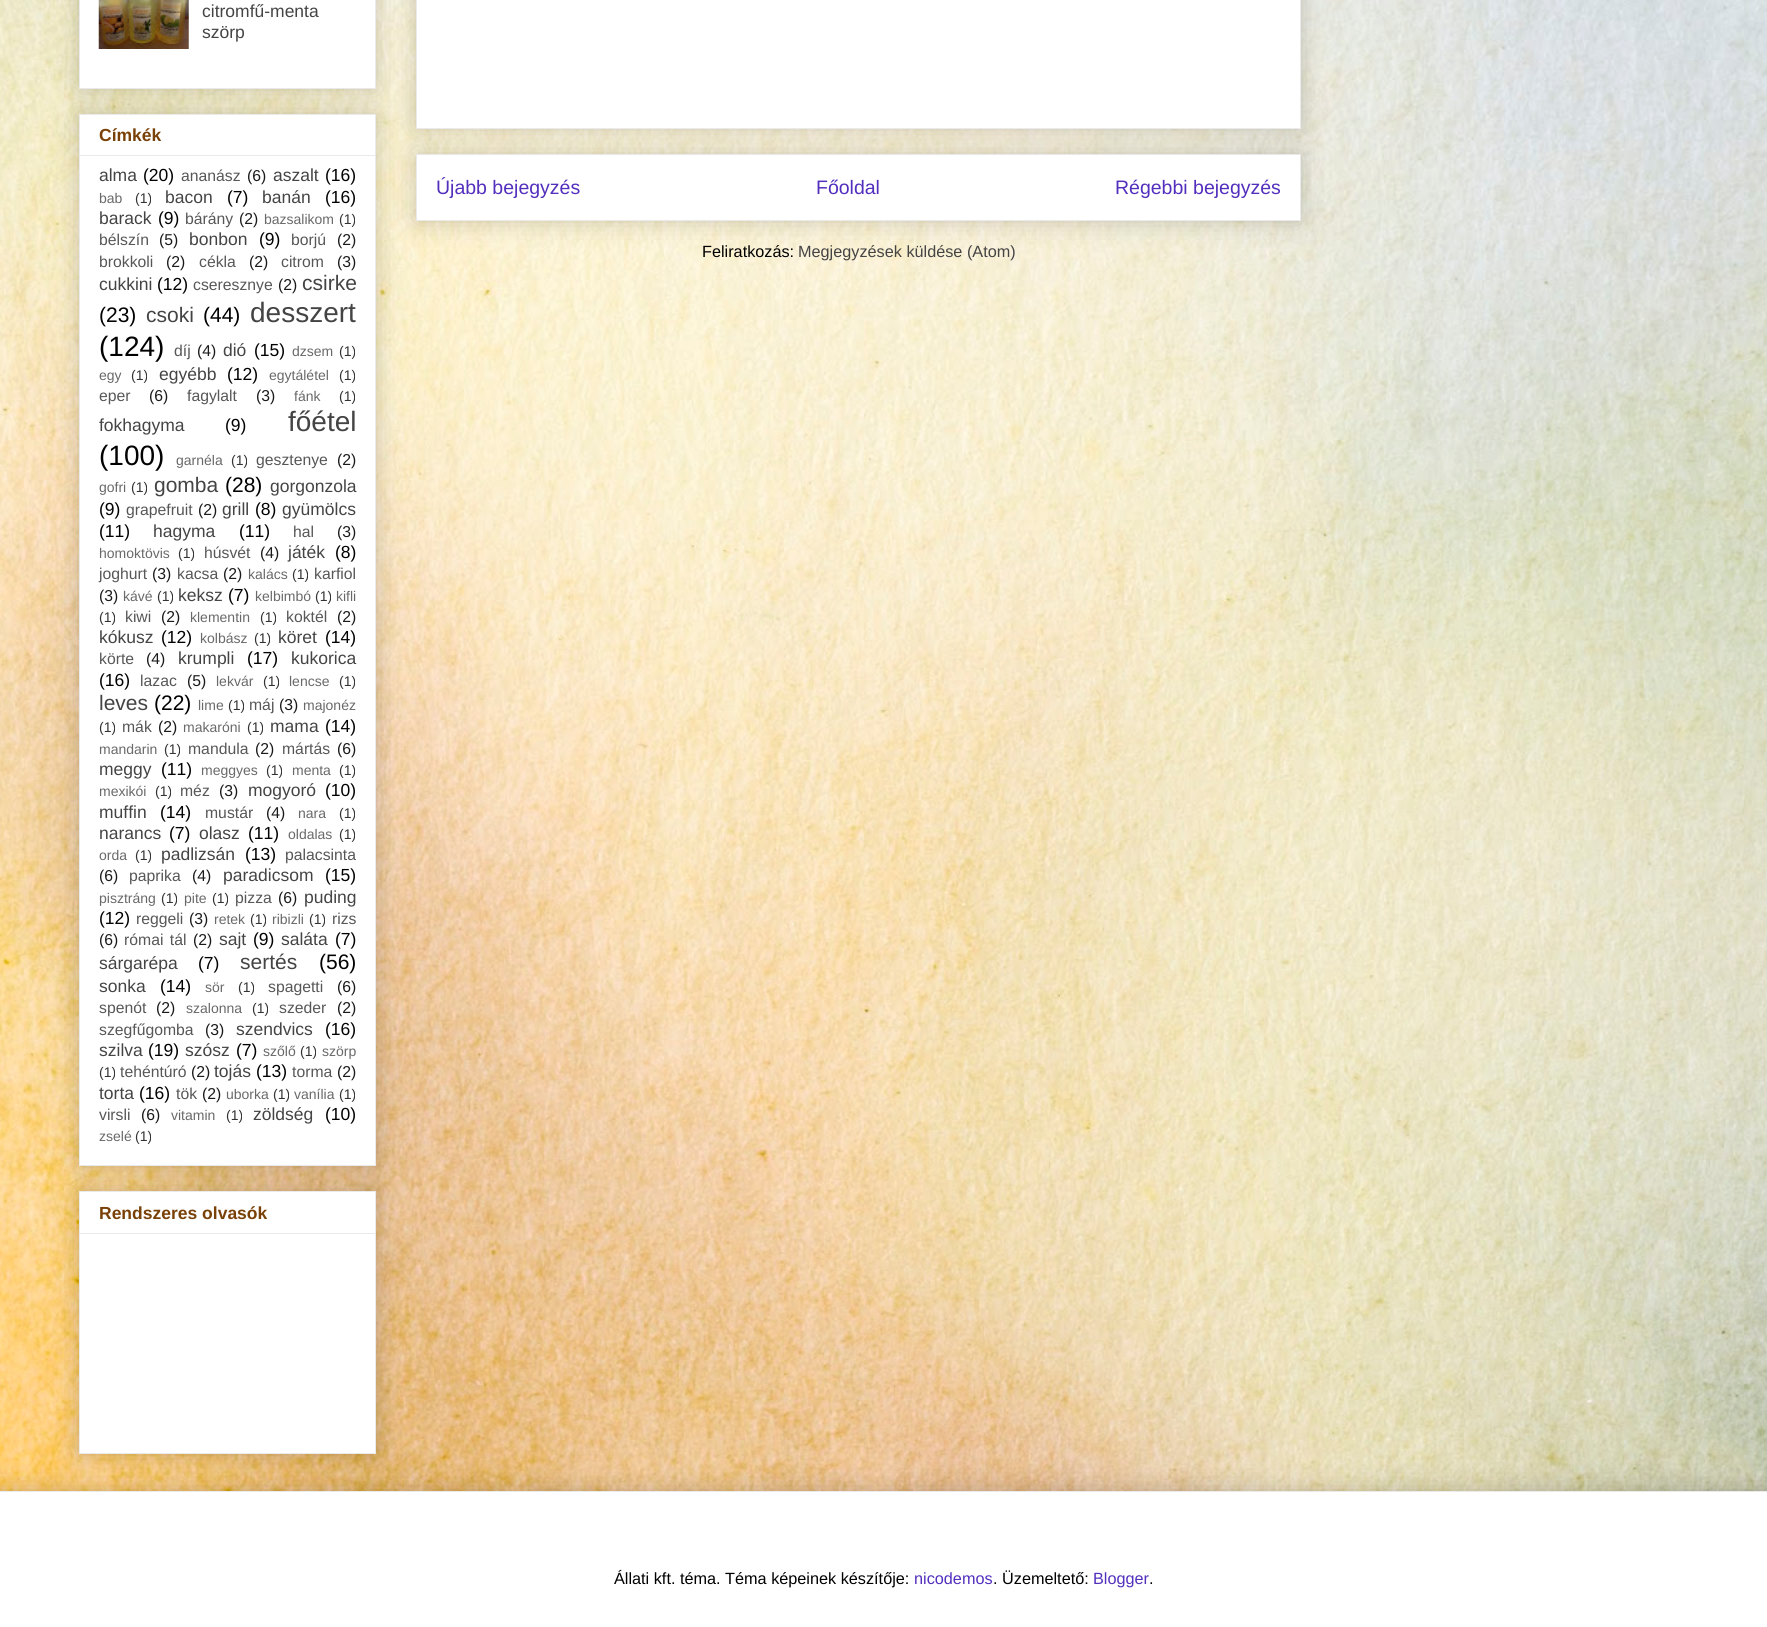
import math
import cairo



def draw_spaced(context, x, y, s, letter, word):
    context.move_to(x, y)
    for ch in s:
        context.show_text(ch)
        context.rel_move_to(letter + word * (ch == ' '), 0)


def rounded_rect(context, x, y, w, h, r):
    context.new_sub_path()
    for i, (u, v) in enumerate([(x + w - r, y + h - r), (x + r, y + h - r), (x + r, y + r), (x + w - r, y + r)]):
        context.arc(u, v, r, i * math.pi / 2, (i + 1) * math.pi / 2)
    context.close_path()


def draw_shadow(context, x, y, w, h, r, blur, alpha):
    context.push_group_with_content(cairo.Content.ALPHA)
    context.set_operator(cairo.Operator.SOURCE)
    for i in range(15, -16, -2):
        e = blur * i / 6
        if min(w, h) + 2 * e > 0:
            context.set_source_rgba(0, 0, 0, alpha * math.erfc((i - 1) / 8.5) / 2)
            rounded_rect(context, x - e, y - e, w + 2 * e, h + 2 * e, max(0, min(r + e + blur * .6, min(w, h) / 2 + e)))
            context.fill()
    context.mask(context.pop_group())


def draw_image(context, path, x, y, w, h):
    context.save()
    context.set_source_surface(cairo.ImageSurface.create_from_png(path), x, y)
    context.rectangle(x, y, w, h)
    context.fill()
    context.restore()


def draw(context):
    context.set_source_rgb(1, 1, 1)
    context.paint()
    draw_image(context, "images/1.png", 0, 0, 1767, 1491)
    context.set_source_rgb(0, 0, 0)
    draw_shadow(context, 79, -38, 297, 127, 0, 12.5, 0.2)
    context.set_source_rgb(1, 1, 1)
    context.rectangle(79.5, -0.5, 296, 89)
    context.fill_preserve()
    context.set_source_rgb(234 / 255, 234 / 255, 234 / 255)
    context.set_line_width(1)
    context.stroke()
    draw_image(context, "images/2.png", 98, 0, 91, 49)
    context.set_source_rgb(0, 0, 0)
    draw_shadow(context, 79, 114, 297, 1052, 0, 12.5, 0.2)
    context.set_source_rgb(1, 1, 1)
    context.rectangle(79.5, 114.5, 296, 1051)
    context.fill_preserve()
    context.set_source_rgb(234 / 255, 234 / 255, 234 / 255)
    context.stroke()
    context.rectangle(80, 155, 295, 1)
    context.fill()
    context.set_source_rgb(0, 0, 0)
    draw_shadow(context, 79, 1191, 297, 263, 0, 12.5, 0.2)
    context.set_source_rgb(1, 1, 1)
    context.rectangle(79.5, 1191.5, 296, 262)
    context.fill_preserve()
    context.set_source_rgb(234 / 255, 234 / 255, 234 / 255)
    context.stroke()
    context.rectangle(80, 1233, 295, 1)
    context.fill()
    context.set_source_rgb(0, 0, 0)
    draw_shadow(context, 416, 154, 885, 67, 0, 12.5, 0.2)
    context.set_source_rgb(1, 1, 1)
    context.rectangle(416.5, 154.5, 884, 66)
    context.fill_preserve()
    context.set_source_rgb(234 / 255, 234 / 255, 234 / 255)
    context.stroke()
    context.set_source_rgb(0, 0, 0)
    draw_shadow(context, 416, -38, 885, 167, 0, 12.5, 0.2)
    context.set_source_rgb(1, 1, 1)
    context.rectangle(416.5, -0.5, 884, 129)
    context.fill_preserve()
    context.set_source_rgb(234 / 255, 234 / 255, 234 / 255)
    context.stroke()
    context.set_source_rgb(0, 0, 0)
    draw_shadow(context, -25, 1491, 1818, 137, 0, 12.5, 0.2)
    context.set_source_rgb(1, 1, 1)
    context.rectangle(0, 1492, 1767, 135)
    context.fill()
    context.set_source_rgb(234 / 255, 234 / 255, 234 / 255)
    context.rectangle(0, 1491, 1767, 1)
    context.fill()
    context.select_font_face("Liberation Sans")
    context.set_font_size(17.5)
    context.set_source_rgb(68 / 255, 68 / 255, 68 / 255)
    context.move_to(202, 17)
    context.show_text("citromfű-menta")
    context.move_to(202, 38)
    context.show_text("szörp")
    context.select_font_face("Liberation Sans", cairo.FontSlant.NORMAL, cairo.FontWeight.BOLD)
    context.set_source_rgb(121 / 255, 65 / 255, 7 / 255)
    context.move_to(99, 141)
    context.show_text("Címkék")
    context.select_font_face("Liberation Sans")
    context.set_source_rgb(68 / 255, 68 / 255, 68 / 255)
    context.move_to(99, 181)
    context.show_text("alma")
    context.set_source_rgb(0, 0, 0)
    context.move_to(143, 181)
    context.show_text("(20)")
    context.set_font_size(15.75)
    context.set_source_rgb(87 / 255, 87 / 255, 87 / 255)
    context.move_to(181, 181)
    context.show_text("ananász")
    context.set_source_rgb(26 / 255, 26 / 255, 26 / 255)
    context.move_to(247, 181)
    context.show_text("(6)")
    context.set_font_size(17.5)
    context.set_source_rgb(68 / 255, 68 / 255, 68 / 255)
    context.move_to(273, 181)
    context.show_text("aszalt")
    context.set_source_rgb(0, 0, 0)
    context.move_to(325, 181)
    context.show_text("(16)")
    context.set_font_size(14)
    context.set_source_rgb(105 / 255, 105 / 255, 105 / 255)
    context.move_to(99, 203)
    context.show_text("bab")
    context.set_source_rgb(51 / 255, 51 / 255, 51 / 255)
    context.move_to(135, 203)
    context.show_text("(1)")
    context.set_font_size(17.5)
    context.set_source_rgb(68 / 255, 68 / 255, 68 / 255)
    context.move_to(165, 203)
    context.show_text("bacon")
    context.set_source_rgb(0, 0, 0)
    context.move_to(227, 203)
    context.show_text("(7)")
    context.set_source_rgb(68 / 255, 68 / 255, 68 / 255)
    context.move_to(262, 203)
    context.show_text("banán")
    context.set_source_rgb(0, 0, 0)
    context.move_to(325, 203)
    context.show_text("(16)")
    context.set_source_rgb(68 / 255, 68 / 255, 68 / 255)
    context.move_to(99, 224)
    context.show_text("barack")
    context.set_source_rgb(0, 0, 0)
    context.move_to(158, 224)
    context.show_text("(9)")
    context.set_font_size(15.75)
    context.set_source_rgb(87 / 255, 87 / 255, 87 / 255)
    context.move_to(185, 224)
    context.show_text("bárány")
    context.set_source_rgb(26 / 255, 26 / 255, 26 / 255)
    context.move_to(239, 224)
    context.show_text("(2)")
    context.set_font_size(14)
    context.set_source_rgb(105 / 255, 105 / 255, 105 / 255)
    context.move_to(264, 224)
    context.show_text("bazsalikom")
    context.set_source_rgb(51 / 255, 51 / 255, 51 / 255)
    context.move_to(339, 224)
    context.show_text("(1)")
    context.set_font_size(15.75)
    context.set_source_rgb(87 / 255, 87 / 255, 87 / 255)
    context.move_to(99, 245)
    context.show_text("bélszín")
    context.set_source_rgb(26 / 255, 26 / 255, 26 / 255)
    context.move_to(159, 245)
    context.show_text("(5)")
    context.set_font_size(17.5)
    context.set_source_rgb(68 / 255, 68 / 255, 68 / 255)
    context.move_to(189, 245)
    context.show_text("bonbon")
    context.set_source_rgb(0, 0, 0)
    context.move_to(259, 245)
    context.show_text("(9)")
    context.set_font_size(15.75)
    context.set_source_rgb(87 / 255, 87 / 255, 87 / 255)
    context.move_to(291, 245)
    context.show_text("borjú")
    context.set_source_rgb(26 / 255, 26 / 255, 26 / 255)
    context.move_to(337, 245)
    context.show_text("(2)")
    context.set_source_rgb(87 / 255, 87 / 255, 87 / 255)
    context.move_to(99, 267)
    context.show_text("brokkoli")
    context.set_source_rgb(26 / 255, 26 / 255, 26 / 255)
    context.move_to(166, 267)
    context.show_text("(2)")
    context.set_source_rgb(87 / 255, 87 / 255, 87 / 255)
    context.move_to(199, 267)
    context.show_text("cékla")
    context.set_source_rgb(26 / 255, 26 / 255, 26 / 255)
    context.move_to(249, 267)
    context.show_text("(2)")
    context.set_source_rgb(87 / 255, 87 / 255, 87 / 255)
    context.move_to(281, 267)
    context.show_text("citrom")
    context.set_source_rgb(26 / 255, 26 / 255, 26 / 255)
    context.move_to(337, 267)
    context.show_text("(3)")
    context.set_font_size(17.5)
    context.set_source_rgb(68 / 255, 68 / 255, 68 / 255)
    context.move_to(99, 290)
    context.show_text("cukkini")
    context.set_source_rgb(0, 0, 0)
    context.move_to(157, 290)
    context.show_text("(12)")
    context.set_font_size(15.75)
    context.set_source_rgb(87 / 255, 87 / 255, 87 / 255)
    context.move_to(193, 290)
    context.show_text("cseresznye")
    context.set_source_rgb(26 / 255, 26 / 255, 26 / 255)
    context.move_to(278, 290)
    context.show_text("(2)")
    context.set_font_size(21)
    context.set_source_rgb(68 / 255, 68 / 255, 68 / 255)
    context.move_to(302, 290)
    context.show_text("csirke")
    context.set_source_rgb(0, 0, 0)
    context.move_to(99, 322)
    context.show_text("(23)")
    context.set_source_rgb(68 / 255, 68 / 255, 68 / 255)
    context.move_to(146, 322)
    context.show_text("csoki")
    context.set_source_rgb(0, 0, 0)
    context.move_to(203, 322)
    context.show_text("(44)")
    context.set_font_size(28)
    context.set_source_rgb(68 / 255, 68 / 255, 68 / 255)
    context.move_to(250, 322)
    context.show_text("desszert")
    context.set_source_rgb(0, 0, 0)
    context.move_to(99, 356)
    context.show_text("(124)")
    context.set_font_size(15.75)
    context.set_source_rgb(87 / 255, 87 / 255, 87 / 255)
    context.move_to(174, 356)
    context.show_text("díj")
    context.set_source_rgb(26 / 255, 26 / 255, 26 / 255)
    context.move_to(197, 356)
    context.show_text("(4)")
    context.set_font_size(17.5)
    context.set_source_rgb(68 / 255, 68 / 255, 68 / 255)
    context.move_to(223, 356)
    context.show_text("dió")
    context.set_source_rgb(0, 0, 0)
    context.move_to(254, 356)
    context.show_text("(15)")
    context.set_font_size(14)
    context.set_source_rgb(105 / 255, 105 / 255, 105 / 255)
    context.move_to(292, 356)
    context.show_text("dzsem")
    context.set_source_rgb(51 / 255, 51 / 255, 51 / 255)
    context.move_to(339, 356)
    context.show_text("(1)")
    context.set_source_rgb(105 / 255, 105 / 255, 105 / 255)
    context.move_to(99, 380)
    context.show_text("egy")
    context.set_source_rgb(51 / 255, 51 / 255, 51 / 255)
    context.move_to(131, 380)
    context.show_text("(1)")
    context.set_font_size(17.5)
    context.set_source_rgb(68 / 255, 68 / 255, 68 / 255)
    context.move_to(159, 380)
    context.show_text("egyébb")
    context.set_source_rgb(0, 0, 0)
    context.move_to(227, 380)
    context.show_text("(12)")
    context.set_font_size(14)
    context.set_source_rgb(105 / 255, 105 / 255, 105 / 255)
    context.move_to(269, 380)
    context.show_text("egytálétel")
    context.set_source_rgb(51 / 255, 51 / 255, 51 / 255)
    context.move_to(339, 380)
    context.show_text("(1)")
    context.set_font_size(15.75)
    context.set_source_rgb(87 / 255, 87 / 255, 87 / 255)
    context.move_to(99, 401)
    context.show_text("eper")
    context.set_source_rgb(26 / 255, 26 / 255, 26 / 255)
    context.move_to(149, 401)
    context.show_text("(6)")
    context.set_source_rgb(87 / 255, 87 / 255, 87 / 255)
    context.move_to(187, 401)
    context.show_text("fagylalt")
    context.set_source_rgb(26 / 255, 26 / 255, 26 / 255)
    context.move_to(256, 401)
    context.show_text("(3)")
    context.set_font_size(14)
    context.set_source_rgb(105 / 255, 105 / 255, 105 / 255)
    context.move_to(294, 401)
    context.show_text("fánk")
    context.set_source_rgb(51 / 255, 51 / 255, 51 / 255)
    context.move_to(339, 401)
    context.show_text("(1)")
    context.set_font_size(17.5)
    context.set_source_rgb(68 / 255, 68 / 255, 68 / 255)
    context.move_to(99, 431)
    context.show_text("fokhagyma")
    context.set_source_rgb(0, 0, 0)
    context.move_to(225, 431)
    context.show_text("(9)")
    context.set_font_size(28)
    context.set_source_rgb(68 / 255, 68 / 255, 68 / 255)
    context.move_to(288, 431)
    context.show_text("főétel")
    context.set_source_rgb(0, 0, 0)
    context.move_to(99, 465)
    context.show_text("(100)")
    context.set_font_size(14)
    context.set_source_rgb(105 / 255, 105 / 255, 105 / 255)
    context.move_to(176, 465)
    context.show_text("garnéla")
    context.set_source_rgb(51 / 255, 51 / 255, 51 / 255)
    context.move_to(231, 465)
    context.show_text("(1)")
    context.set_font_size(15.75)
    context.set_source_rgb(87 / 255, 87 / 255, 87 / 255)
    context.move_to(256, 465)
    context.show_text("gesztenye")
    context.set_source_rgb(26 / 255, 26 / 255, 26 / 255)
    context.move_to(337, 465)
    context.show_text("(2)")
    context.set_font_size(14)
    context.set_source_rgb(105 / 255, 105 / 255, 105 / 255)
    context.move_to(99, 492)
    context.show_text("gofri")
    context.set_source_rgb(51 / 255, 51 / 255, 51 / 255)
    context.move_to(131, 492)
    context.show_text("(1)")
    context.set_font_size(21)
    context.set_source_rgb(68 / 255, 68 / 255, 68 / 255)
    context.move_to(154, 492)
    context.show_text("gomba")
    context.set_source_rgb(0, 0, 0)
    context.move_to(225, 492)
    context.show_text("(28)")
    context.set_font_size(17.5)
    context.set_source_rgb(68 / 255, 68 / 255, 68 / 255)
    context.move_to(270, 492)
    context.show_text("gorgonzola")
    context.set_source_rgb(0, 0, 0)
    context.move_to(99, 515)
    context.show_text("(9)")
    context.set_font_size(15.75)
    context.set_source_rgb(87 / 255, 87 / 255, 87 / 255)
    context.move_to(126, 515)
    context.show_text("grapefruit")
    context.set_source_rgb(26 / 255, 26 / 255, 26 / 255)
    context.move_to(198, 515)
    context.show_text("(2)")
    context.set_font_size(17.5)
    context.set_source_rgb(68 / 255, 68 / 255, 68 / 255)
    context.move_to(222, 515)
    context.show_text("grill")
    context.set_source_rgb(0, 0, 0)
    context.move_to(255, 515)
    context.show_text("(8)")
    context.set_source_rgb(68 / 255, 68 / 255, 68 / 255)
    context.move_to(282, 515)
    context.show_text("gyümölcs")
    context.set_source_rgb(0, 0, 0)
    context.move_to(99, 537)
    context.show_text("(11)")
    context.set_source_rgb(68 / 255, 68 / 255, 68 / 255)
    context.move_to(153, 537)
    context.show_text("hagyma")
    context.set_source_rgb(0, 0, 0)
    context.move_to(239, 537)
    context.show_text("(11)")
    context.set_font_size(15.75)
    context.set_source_rgb(87 / 255, 87 / 255, 87 / 255)
    context.move_to(293, 537)
    context.show_text("hal")
    context.set_source_rgb(26 / 255, 26 / 255, 26 / 255)
    context.move_to(337, 537)
    context.show_text("(3)")
    context.set_font_size(14)
    context.set_source_rgb(105 / 255, 105 / 255, 105 / 255)
    context.move_to(99, 558)
    context.show_text("homoktövis")
    context.set_source_rgb(51 / 255, 51 / 255, 51 / 255)
    context.move_to(178, 558)
    context.show_text("(1)")
    context.set_font_size(15.75)
    context.set_source_rgb(87 / 255, 87 / 255, 87 / 255)
    context.move_to(204, 558)
    context.show_text("húsvét")
    context.set_source_rgb(26 / 255, 26 / 255, 26 / 255)
    context.move_to(260, 558)
    context.show_text("(4)")
    context.set_font_size(17.5)
    context.set_source_rgb(68 / 255, 68 / 255, 68 / 255)
    context.move_to(288, 558)
    context.show_text("játék")
    context.set_source_rgb(0, 0, 0)
    context.move_to(335, 558)
    context.show_text("(8)")
    context.set_font_size(15.75)
    context.set_source_rgb(87 / 255, 87 / 255, 87 / 255)
    context.move_to(99, 579)
    context.show_text("joghurt")
    context.set_source_rgb(26 / 255, 26 / 255, 26 / 255)
    context.move_to(152, 579)
    context.show_text("(3)")
    context.set_source_rgb(87 / 255, 87 / 255, 87 / 255)
    context.move_to(177, 579)
    context.show_text("kacsa")
    context.set_source_rgb(26 / 255, 26 / 255, 26 / 255)
    context.move_to(223, 579)
    context.show_text("(2)")
    context.set_font_size(14)
    context.set_source_rgb(105 / 255, 105 / 255, 105 / 255)
    context.move_to(248, 579)
    context.show_text("kalács")
    context.set_source_rgb(51 / 255, 51 / 255, 51 / 255)
    context.move_to(292, 579)
    context.show_text("(1)")
    context.set_font_size(15.75)
    context.set_source_rgb(87 / 255, 87 / 255, 87 / 255)
    context.move_to(314, 579)
    context.show_text("karfiol")
    context.set_source_rgb(26 / 255, 26 / 255, 26 / 255)
    context.move_to(99, 601)
    context.show_text("(3)")
    context.set_font_size(14)
    context.set_source_rgb(105 / 255, 105 / 255, 105 / 255)
    context.move_to(123, 601)
    context.show_text("kávé")
    context.set_source_rgb(51 / 255, 51 / 255, 51 / 255)
    context.move_to(157, 601)
    context.show_text("(1)")
    context.set_font_size(17.5)
    context.set_source_rgb(68 / 255, 68 / 255, 68 / 255)
    context.move_to(178, 601)
    context.show_text("keksz")
    context.set_source_rgb(0, 0, 0)
    context.move_to(228, 601)
    context.show_text("(7)")
    context.set_font_size(14)
    context.set_source_rgb(105 / 255, 105 / 255, 105 / 255)
    context.move_to(255, 601)
    context.show_text("kelbimbó")
    context.set_source_rgb(51 / 255, 51 / 255, 51 / 255)
    context.move_to(315, 601)
    context.show_text("(1)")
    context.set_source_rgb(105 / 255, 105 / 255, 105 / 255)
    context.move_to(336, 601)
    context.show_text("kifli")
    context.set_source_rgb(51 / 255, 51 / 255, 51 / 255)
    context.move_to(99, 622)
    context.show_text("(1)")
    context.set_font_size(15.75)
    context.set_source_rgb(87 / 255, 87 / 255, 87 / 255)
    context.move_to(125, 622)
    context.show_text("kiwi")
    context.set_source_rgb(26 / 255, 26 / 255, 26 / 255)
    context.move_to(161, 622)
    context.show_text("(2)")
    context.set_font_size(14)
    context.set_source_rgb(105 / 255, 105 / 255, 105 / 255)
    context.move_to(190, 622)
    context.show_text("klementin")
    context.set_source_rgb(51 / 255, 51 / 255, 51 / 255)
    context.move_to(260, 622)
    context.show_text("(1)")
    context.set_font_size(15.75)
    context.set_source_rgb(87 / 255, 87 / 255, 87 / 255)
    context.move_to(286, 622)
    context.show_text("koktél")
    context.set_source_rgb(26 / 255, 26 / 255, 26 / 255)
    context.move_to(337, 622)
    context.show_text("(2)")
    context.set_font_size(17.5)
    context.set_source_rgb(68 / 255, 68 / 255, 68 / 255)
    context.move_to(99, 643)
    context.show_text("kókusz")
    context.set_source_rgb(0, 0, 0)
    context.move_to(161, 643)
    context.show_text("(12)")
    context.set_font_size(14)
    context.set_source_rgb(105 / 255, 105 / 255, 105 / 255)
    context.move_to(200, 643)
    context.show_text("kolbász")
    context.set_source_rgb(51 / 255, 51 / 255, 51 / 255)
    context.move_to(254, 643)
    context.show_text("(1)")
    context.set_font_size(17.5)
    context.set_source_rgb(68 / 255, 68 / 255, 68 / 255)
    context.move_to(278, 643)
    context.show_text("köret")
    context.set_source_rgb(0, 0, 0)
    context.move_to(325, 643)
    context.show_text("(14)")
    context.set_font_size(15.75)
    context.set_source_rgb(87 / 255, 87 / 255, 87 / 255)
    context.move_to(99, 664)
    context.show_text("körte")
    context.set_source_rgb(26 / 255, 26 / 255, 26 / 255)
    context.move_to(146, 664)
    context.show_text("(4)")
    context.set_font_size(17.5)
    context.set_source_rgb(68 / 255, 68 / 255, 68 / 255)
    context.move_to(178, 664)
    context.show_text("krumpli")
    context.set_source_rgb(0, 0, 0)
    context.move_to(247, 664)
    context.show_text("(17)")
    context.set_source_rgb(68 / 255, 68 / 255, 68 / 255)
    context.move_to(291, 664)
    context.show_text("kukorica")
    context.set_source_rgb(0, 0, 0)
    context.move_to(99, 686)
    context.show_text("(16)")
    context.set_font_size(15.75)
    context.set_source_rgb(87 / 255, 87 / 255, 87 / 255)
    context.move_to(140, 686)
    context.show_text("lazac")
    context.set_source_rgb(26 / 255, 26 / 255, 26 / 255)
    context.move_to(187, 686)
    context.show_text("(5)")
    context.set_font_size(14)
    context.set_source_rgb(105 / 255, 105 / 255, 105 / 255)
    context.move_to(216, 686)
    context.show_text("lekvár")
    context.set_source_rgb(51 / 255, 51 / 255, 51 / 255)
    context.move_to(263, 686)
    context.show_text("(1)")
    context.set_source_rgb(105 / 255, 105 / 255, 105 / 255)
    context.move_to(289, 686)
    context.show_text("lencse")
    context.set_source_rgb(51 / 255, 51 / 255, 51 / 255)
    context.move_to(339, 686)
    context.show_text("(1)")
    context.set_font_size(21)
    context.set_source_rgb(68 / 255, 68 / 255, 68 / 255)
    context.move_to(99, 710)
    context.show_text("leves")
    context.set_source_rgb(0, 0, 0)
    context.move_to(154, 710)
    context.show_text("(22)")
    context.set_font_size(14)
    context.set_source_rgb(105 / 255, 105 / 255, 105 / 255)
    context.move_to(198, 710)
    context.show_text("lime")
    context.set_source_rgb(51 / 255, 51 / 255, 51 / 255)
    context.move_to(228, 710)
    context.show_text("(1)")
    context.set_font_size(15.75)
    context.set_source_rgb(87 / 255, 87 / 255, 87 / 255)
    context.move_to(249, 710)
    context.show_text("máj")
    context.set_source_rgb(26 / 255, 26 / 255, 26 / 255)
    context.move_to(279, 710)
    context.show_text("(3)")
    context.set_font_size(14)
    context.set_source_rgb(105 / 255, 105 / 255, 105 / 255)
    context.move_to(303, 710)
    context.show_text("majonéz")
    context.set_source_rgb(51 / 255, 51 / 255, 51 / 255)
    context.move_to(99, 732)
    context.show_text("(1)")
    context.set_font_size(15.75)
    context.set_source_rgb(87 / 255, 87 / 255, 87 / 255)
    context.move_to(122, 732)
    context.show_text("mák")
    context.set_source_rgb(26 / 255, 26 / 255, 26 / 255)
    context.move_to(158, 732)
    context.show_text("(2)")
    context.set_font_size(14)
    context.set_source_rgb(105 / 255, 105 / 255, 105 / 255)
    context.move_to(183, 732)
    context.show_text("makaróni")
    context.set_source_rgb(51 / 255, 51 / 255, 51 / 255)
    context.move_to(247, 732)
    context.show_text("(1)")
    context.set_font_size(17.5)
    context.set_source_rgb(68 / 255, 68 / 255, 68 / 255)
    context.move_to(270, 732)
    context.show_text("mama")
    context.set_source_rgb(0, 0, 0)
    context.move_to(325, 732)
    context.show_text("(14)")
    context.set_font_size(14)
    context.set_source_rgb(105 / 255, 105 / 255, 105 / 255)
    context.move_to(99, 754)
    context.show_text("mandarin")
    context.set_source_rgb(51 / 255, 51 / 255, 51 / 255)
    context.move_to(164, 754)
    context.show_text("(1)")
    context.set_font_size(15.75)
    context.set_source_rgb(87 / 255, 87 / 255, 87 / 255)
    context.move_to(188, 754)
    context.show_text("mandula")
    context.set_source_rgb(26 / 255, 26 / 255, 26 / 255)
    context.move_to(255, 754)
    context.show_text("(2)")
    context.set_source_rgb(87 / 255, 87 / 255, 87 / 255)
    context.move_to(282, 754)
    context.show_text("mártás")
    context.set_source_rgb(26 / 255, 26 / 255, 26 / 255)
    context.move_to(337, 754)
    context.show_text("(6)")
    context.set_font_size(17.5)
    context.set_source_rgb(68 / 255, 68 / 255, 68 / 255)
    context.move_to(99, 775)
    context.show_text("meggy")
    context.set_source_rgb(0, 0, 0)
    context.move_to(161, 775)
    context.show_text("(11)")
    context.set_font_size(14)
    context.set_source_rgb(105 / 255, 105 / 255, 105 / 255)
    context.move_to(201, 775)
    context.show_text("meggyes")
    context.set_source_rgb(51 / 255, 51 / 255, 51 / 255)
    context.move_to(266, 775)
    context.show_text("(1)")
    context.set_source_rgb(105 / 255, 105 / 255, 105 / 255)
    context.move_to(292, 775)
    context.show_text("menta")
    context.set_source_rgb(51 / 255, 51 / 255, 51 / 255)
    context.move_to(339, 775)
    context.show_text("(1)")
    context.set_source_rgb(105 / 255, 105 / 255, 105 / 255)
    context.move_to(99, 796)
    context.show_text("mexikói")
    context.set_source_rgb(51 / 255, 51 / 255, 51 / 255)
    context.move_to(155, 796)
    context.show_text("(1)")
    context.set_font_size(15.75)
    context.set_source_rgb(87 / 255, 87 / 255, 87 / 255)
    context.move_to(180, 796)
    context.show_text("méz")
    context.set_source_rgb(26 / 255, 26 / 255, 26 / 255)
    context.move_to(219, 796)
    context.show_text("(3)")
    context.set_font_size(17.5)
    context.set_source_rgb(68 / 255, 68 / 255, 68 / 255)
    context.move_to(248, 796)
    context.show_text("mogyoró")
    context.set_source_rgb(0, 0, 0)
    context.move_to(325, 796)
    context.show_text("(10)")
    context.set_source_rgb(68 / 255, 68 / 255, 68 / 255)
    context.move_to(99, 818)
    context.show_text("muffin")
    context.set_source_rgb(0, 0, 0)
    context.move_to(160, 818)
    context.show_text("(14)")
    context.set_font_size(15.75)
    context.set_source_rgb(87 / 255, 87 / 255, 87 / 255)
    context.move_to(205, 818)
    context.show_text("mustár")
    context.set_source_rgb(26 / 255, 26 / 255, 26 / 255)
    context.move_to(266, 818)
    context.show_text("(4)")
    context.set_font_size(14)
    context.set_source_rgb(105 / 255, 105 / 255, 105 / 255)
    context.move_to(298, 818)
    context.show_text("nara")
    context.set_source_rgb(51 / 255, 51 / 255, 51 / 255)
    context.move_to(339, 818)
    context.show_text("(1)")
    context.set_font_size(17.5)
    context.set_source_rgb(68 / 255, 68 / 255, 68 / 255)
    context.move_to(99, 839)
    context.show_text("narancs")
    context.set_source_rgb(0, 0, 0)
    context.move_to(169, 839)
    context.show_text("(7)")
    context.set_source_rgb(68 / 255, 68 / 255, 68 / 255)
    context.move_to(199, 839)
    context.show_text("olasz")
    context.set_source_rgb(0, 0, 0)
    context.move_to(248, 839)
    context.show_text("(11)")
    context.set_font_size(14)
    context.set_source_rgb(105 / 255, 105 / 255, 105 / 255)
    context.move_to(288, 839)
    context.show_text("oldalas")
    context.set_source_rgb(51 / 255, 51 / 255, 51 / 255)
    context.move_to(339, 839)
    context.show_text("(1)")
    context.set_source_rgb(105 / 255, 105 / 255, 105 / 255)
    context.move_to(99, 860)
    context.show_text("orda")
    context.set_source_rgb(51 / 255, 51 / 255, 51 / 255)
    context.move_to(135, 860)
    context.show_text("(1)")
    context.set_font_size(17.5)
    context.set_source_rgb(68 / 255, 68 / 255, 68 / 255)
    context.move_to(161, 860)
    context.show_text("padlizsán")
    context.set_source_rgb(0, 0, 0)
    context.move_to(245, 860)
    context.show_text("(13)")
    context.set_font_size(15.75)
    context.set_source_rgb(87 / 255, 87 / 255, 87 / 255)
    context.move_to(285, 860)
    context.show_text("palacsinta")
    context.set_source_rgb(26 / 255, 26 / 255, 26 / 255)
    context.move_to(99, 881)
    context.show_text("(6)")
    context.set_source_rgb(87 / 255, 87 / 255, 87 / 255)
    context.move_to(129, 881)
    context.show_text("paprika")
    context.set_source_rgb(26 / 255, 26 / 255, 26 / 255)
    context.move_to(192, 881)
    context.show_text("(4)")
    context.set_font_size(17.5)
    context.set_source_rgb(68 / 255, 68 / 255, 68 / 255)
    context.move_to(223, 881)
    context.show_text("paradicsom")
    context.set_source_rgb(0, 0, 0)
    context.move_to(325, 881)
    context.show_text("(15)")
    context.set_font_size(14)
    context.set_source_rgb(105 / 255, 105 / 255, 105 / 255)
    context.move_to(99, 903)
    context.show_text("pisztráng")
    context.set_source_rgb(51 / 255, 51 / 255, 51 / 255)
    context.move_to(161, 903)
    context.show_text("(1)")
    context.set_source_rgb(105 / 255, 105 / 255, 105 / 255)
    context.move_to(184, 903)
    context.show_text("pite")
    context.set_source_rgb(51 / 255, 51 / 255, 51 / 255)
    context.move_to(212, 903)
    context.show_text("(1)")
    context.set_font_size(15.75)
    context.set_source_rgb(87 / 255, 87 / 255, 87 / 255)
    context.move_to(235, 903)
    context.show_text("pizza")
    context.set_source_rgb(26 / 255, 26 / 255, 26 / 255)
    context.move_to(278, 903)
    context.show_text("(6)")
    context.set_font_size(17.5)
    context.set_source_rgb(68 / 255, 68 / 255, 68 / 255)
    context.move_to(304, 903)
    context.show_text("puding")
    context.set_source_rgb(0, 0, 0)
    context.move_to(99, 924)
    context.show_text("(12)")
    context.set_font_size(15.75)
    context.set_source_rgb(87 / 255, 87 / 255, 87 / 255)
    context.move_to(136, 924)
    context.show_text("reggeli")
    context.set_source_rgb(26 / 255, 26 / 255, 26 / 255)
    context.move_to(189, 924)
    context.show_text("(3)")
    context.set_font_size(14)
    context.set_source_rgb(105 / 255, 105 / 255, 105 / 255)
    context.move_to(214, 924)
    context.show_text("retek")
    context.set_source_rgb(51 / 255, 51 / 255, 51 / 255)
    context.move_to(250, 924)
    context.show_text("(1)")
    context.set_source_rgb(105 / 255, 105 / 255, 105 / 255)
    context.move_to(272, 924)
    context.show_text("ribizli")
    context.set_source_rgb(51 / 255, 51 / 255, 51 / 255)
    context.move_to(309, 924)
    context.show_text("(1)")
    context.set_font_size(15.75)
    context.set_source_rgb(87 / 255, 87 / 255, 87 / 255)
    context.move_to(332, 924)
    context.show_text("rizs")
    context.set_source_rgb(26 / 255, 26 / 255, 26 / 255)
    context.move_to(99, 945)
    context.show_text("(6)")
    context.set_source_rgb(87 / 255, 87 / 255, 87 / 255)
    draw_spaced(context, 124, 945, "római tál", 0, 2)
    context.set_source_rgb(26 / 255, 26 / 255, 26 / 255)
    context.move_to(193, 945)
    context.show_text("(2)")
    context.set_font_size(17.5)
    context.set_source_rgb(68 / 255, 68 / 255, 68 / 255)
    context.move_to(219, 945)
    context.show_text("sajt")
    context.set_source_rgb(0, 0, 0)
    context.move_to(253, 945)
    context.show_text("(9)")
    context.set_source_rgb(68 / 255, 68 / 255, 68 / 255)
    context.move_to(281, 945)
    context.show_text("saláta")
    context.set_source_rgb(0, 0, 0)
    context.move_to(335, 945)
    context.show_text("(7)")
    context.set_source_rgb(68 / 255, 68 / 255, 68 / 255)
    context.move_to(99, 969)
    context.show_text("sárgarépa")
    context.set_source_rgb(0, 0, 0)
    context.move_to(198, 969)
    context.show_text("(7)")
    context.set_font_size(21)
    context.set_source_rgb(68 / 255, 68 / 255, 68 / 255)
    context.move_to(240, 969)
    context.show_text("sertés")
    context.set_source_rgb(0, 0, 0)
    context.move_to(319, 969)
    context.show_text("(56)")
    context.set_font_size(17.5)
    context.set_source_rgb(68 / 255, 68 / 255, 68 / 255)
    context.move_to(99, 992)
    context.show_text("sonka")
    context.set_source_rgb(0, 0, 0)
    context.move_to(160, 992)
    context.show_text("(14)")
    context.set_font_size(14)
    context.set_source_rgb(105 / 255, 105 / 255, 105 / 255)
    context.move_to(205, 992)
    context.show_text("sör")
    context.set_source_rgb(51 / 255, 51 / 255, 51 / 255)
    context.move_to(238, 992)
    context.show_text("(1)")
    context.set_font_size(15.75)
    context.set_source_rgb(87 / 255, 87 / 255, 87 / 255)
    context.move_to(268, 992)
    context.show_text("spagetti")
    context.set_source_rgb(26 / 255, 26 / 255, 26 / 255)
    context.move_to(337, 992)
    context.show_text("(6)")
    context.set_source_rgb(87 / 255, 87 / 255, 87 / 255)
    context.move_to(99, 1013)
    context.show_text("spenót")
    context.set_source_rgb(26 / 255, 26 / 255, 26 / 255)
    context.move_to(156, 1013)
    context.show_text("(2)")
    context.set_font_size(14)
    context.set_source_rgb(105 / 255, 105 / 255, 105 / 255)
    context.move_to(186, 1013)
    context.show_text("szalonna")
    context.set_source_rgb(51 / 255, 51 / 255, 51 / 255)
    context.move_to(252, 1013)
    context.show_text("(1)")
    context.set_font_size(15.75)
    context.set_source_rgb(87 / 255, 87 / 255, 87 / 255)
    context.move_to(279, 1013)
    context.show_text("szeder")
    context.set_source_rgb(26 / 255, 26 / 255, 26 / 255)
    context.move_to(337, 1013)
    context.show_text("(2)")
    context.set_source_rgb(87 / 255, 87 / 255, 87 / 255)
    context.move_to(99, 1035)
    context.show_text("szegfűgomba")
    context.set_source_rgb(26 / 255, 26 / 255, 26 / 255)
    context.move_to(205, 1035)
    context.show_text("(3)")
    context.set_font_size(17.5)
    context.set_source_rgb(68 / 255, 68 / 255, 68 / 255)
    context.move_to(236, 1035)
    context.show_text("szendvics")
    context.set_source_rgb(0, 0, 0)
    context.move_to(325, 1035)
    context.show_text("(16)")
    context.set_source_rgb(68 / 255, 68 / 255, 68 / 255)
    context.move_to(99, 1056)
    context.show_text("szilva")
    context.set_source_rgb(0, 0, 0)
    context.move_to(148, 1056)
    context.show_text("(19)")
    context.set_source_rgb(68 / 255, 68 / 255, 68 / 255)
    context.move_to(185, 1056)
    context.show_text("szósz")
    context.set_source_rgb(0, 0, 0)
    context.move_to(236, 1056)
    context.show_text("(7)")
    context.set_font_size(14)
    context.set_source_rgb(105 / 255, 105 / 255, 105 / 255)
    context.move_to(263, 1056)
    context.show_text("szőlő")
    context.set_source_rgb(51 / 255, 51 / 255, 51 / 255)
    context.move_to(300, 1056)
    context.show_text("(1)")
    context.set_source_rgb(105 / 255, 105 / 255, 105 / 255)
    context.move_to(322, 1056)
    context.show_text("szörp")
    context.set_source_rgb(51 / 255, 51 / 255, 51 / 255)
    context.move_to(99, 1077)
    context.show_text("(1)")
    context.set_font_size(15.75)
    context.set_source_rgb(87 / 255, 87 / 255, 87 / 255)
    context.move_to(120, 1077)
    context.show_text("tehéntúró")
    context.set_source_rgb(26 / 255, 26 / 255, 26 / 255)
    context.move_to(191, 1077)
    context.show_text("(2)")
    context.set_font_size(17.5)
    context.set_source_rgb(68 / 255, 68 / 255, 68 / 255)
    context.move_to(214, 1077)
    context.show_text("tojás")
    context.set_source_rgb(0, 0, 0)
    context.move_to(256, 1077)
    context.show_text("(13)")
    context.set_font_size(15.75)
    context.set_source_rgb(87 / 255, 87 / 255, 87 / 255)
    context.move_to(292, 1077)
    context.show_text("torma")
    context.set_source_rgb(26 / 255, 26 / 255, 26 / 255)
    context.move_to(337, 1077)
    context.show_text("(2)")
    context.set_font_size(17.5)
    context.set_source_rgb(68 / 255, 68 / 255, 68 / 255)
    context.move_to(99, 1099)
    context.show_text("torta")
    context.set_source_rgb(0, 0, 0)
    context.move_to(139, 1099)
    context.show_text("(16)")
    context.set_font_size(15.75)
    context.set_source_rgb(87 / 255, 87 / 255, 87 / 255)
    context.move_to(176, 1099)
    context.show_text("tök")
    context.set_source_rgb(26 / 255, 26 / 255, 26 / 255)
    context.move_to(202, 1099)
    context.show_text("(2)")
    context.set_font_size(14)
    context.set_source_rgb(105 / 255, 105 / 255, 105 / 255)
    context.move_to(226, 1099)
    context.show_text("uborka")
    context.set_source_rgb(51 / 255, 51 / 255, 51 / 255)
    context.move_to(273, 1099)
    context.show_text("(1)")
    context.set_source_rgb(105 / 255, 105 / 255, 105 / 255)
    context.move_to(294, 1099)
    context.show_text("vanília")
    context.set_source_rgb(51 / 255, 51 / 255, 51 / 255)
    context.move_to(339, 1099)
    context.show_text("(1)")
    context.set_font_size(15.75)
    context.set_source_rgb(87 / 255, 87 / 255, 87 / 255)
    context.move_to(99, 1120)
    context.show_text("virsli")
    context.set_source_rgb(26 / 255, 26 / 255, 26 / 255)
    context.move_to(141, 1120)
    context.show_text("(6)")
    context.set_font_size(14)
    context.set_source_rgb(105 / 255, 105 / 255, 105 / 255)
    context.move_to(171, 1120)
    context.show_text("vitamin")
    context.set_source_rgb(51 / 255, 51 / 255, 51 / 255)
    context.move_to(226, 1120)
    context.show_text("(1)")
    context.set_font_size(17.5)
    context.set_source_rgb(68 / 255, 68 / 255, 68 / 255)
    context.move_to(253, 1120)
    context.show_text("zöldség")
    context.set_source_rgb(0, 0, 0)
    context.move_to(325, 1120)
    context.show_text("(10)")
    context.set_font_size(14)
    context.set_source_rgb(105 / 255, 105 / 255, 105 / 255)
    context.move_to(99, 1141)
    context.show_text("zselé")
    context.set_source_rgb(51 / 255, 51 / 255, 51 / 255)
    context.move_to(135, 1141)
    context.show_text("(1)")
    context.select_font_face("Liberation Sans", cairo.FontSlant.NORMAL, cairo.FontWeight.BOLD)
    context.set_font_size(17.5)
    context.set_source_rgb(121 / 255, 65 / 255, 7 / 255)
    context.move_to(99, 1219)
    context.show_text("Rendszeres olvasók")
    context.select_font_face("Liberation Sans")
    context.set_font_size(19.5)
    context.set_source_rgb(82 / 255, 47 / 255, 189 / 255)
    context.move_to(436, 194)
    context.show_text("Újabb bejegyzés")
    context.move_to(816, 194)
    context.show_text("Főoldal")
    context.move_to(1115, 194)
    context.show_text("Régebbi bejegyzés")
    context.set_font_size(16.25)
    context.set_source_rgb(0, 0, 0)
    context.move_to(702, 257)
    context.show_text("Feliratkozás:")
    context.set_source_rgb(68 / 255, 68 / 255, 68 / 255)
    context.move_to(798, 257)
    context.show_text("Megjegyzések küldése (Atom)")
    context.set_source_rgb(0, 0, 0)
    context.move_to(614, 1584)
    context.show_text("Állati kft. téma. Téma képeinek készítője:")
    context.set_source_rgb(82 / 255, 47 / 255, 189 / 255)
    context.move_to(914, 1584)
    context.show_text("nicodemos")
    context.set_source_rgb(0, 0, 0)
    context.move_to(993, 1584)
    context.show_text(". Üzemeltető:")
    context.set_source_rgb(82 / 255, 47 / 255, 189 / 255)
    context.move_to(1093, 1584)
    context.show_text("Blogger")
    context.set_source_rgb(0, 0, 0)
    context.move_to(1149, 1584)
    context.show_text(".")


surface = cairo.ImageSurface(cairo.Format.RGB24, 1767, 1627)
context = cairo.Context(surface)
options = cairo.FontOptions()
options.set_hint_metrics(cairo.HintMetrics.OFF)
options.set_hint_style(cairo.HintStyle.NONE)
context.set_font_options(options)
context.set_miter_limit(4)
draw(context)
surface.write_to_png("out.png")
